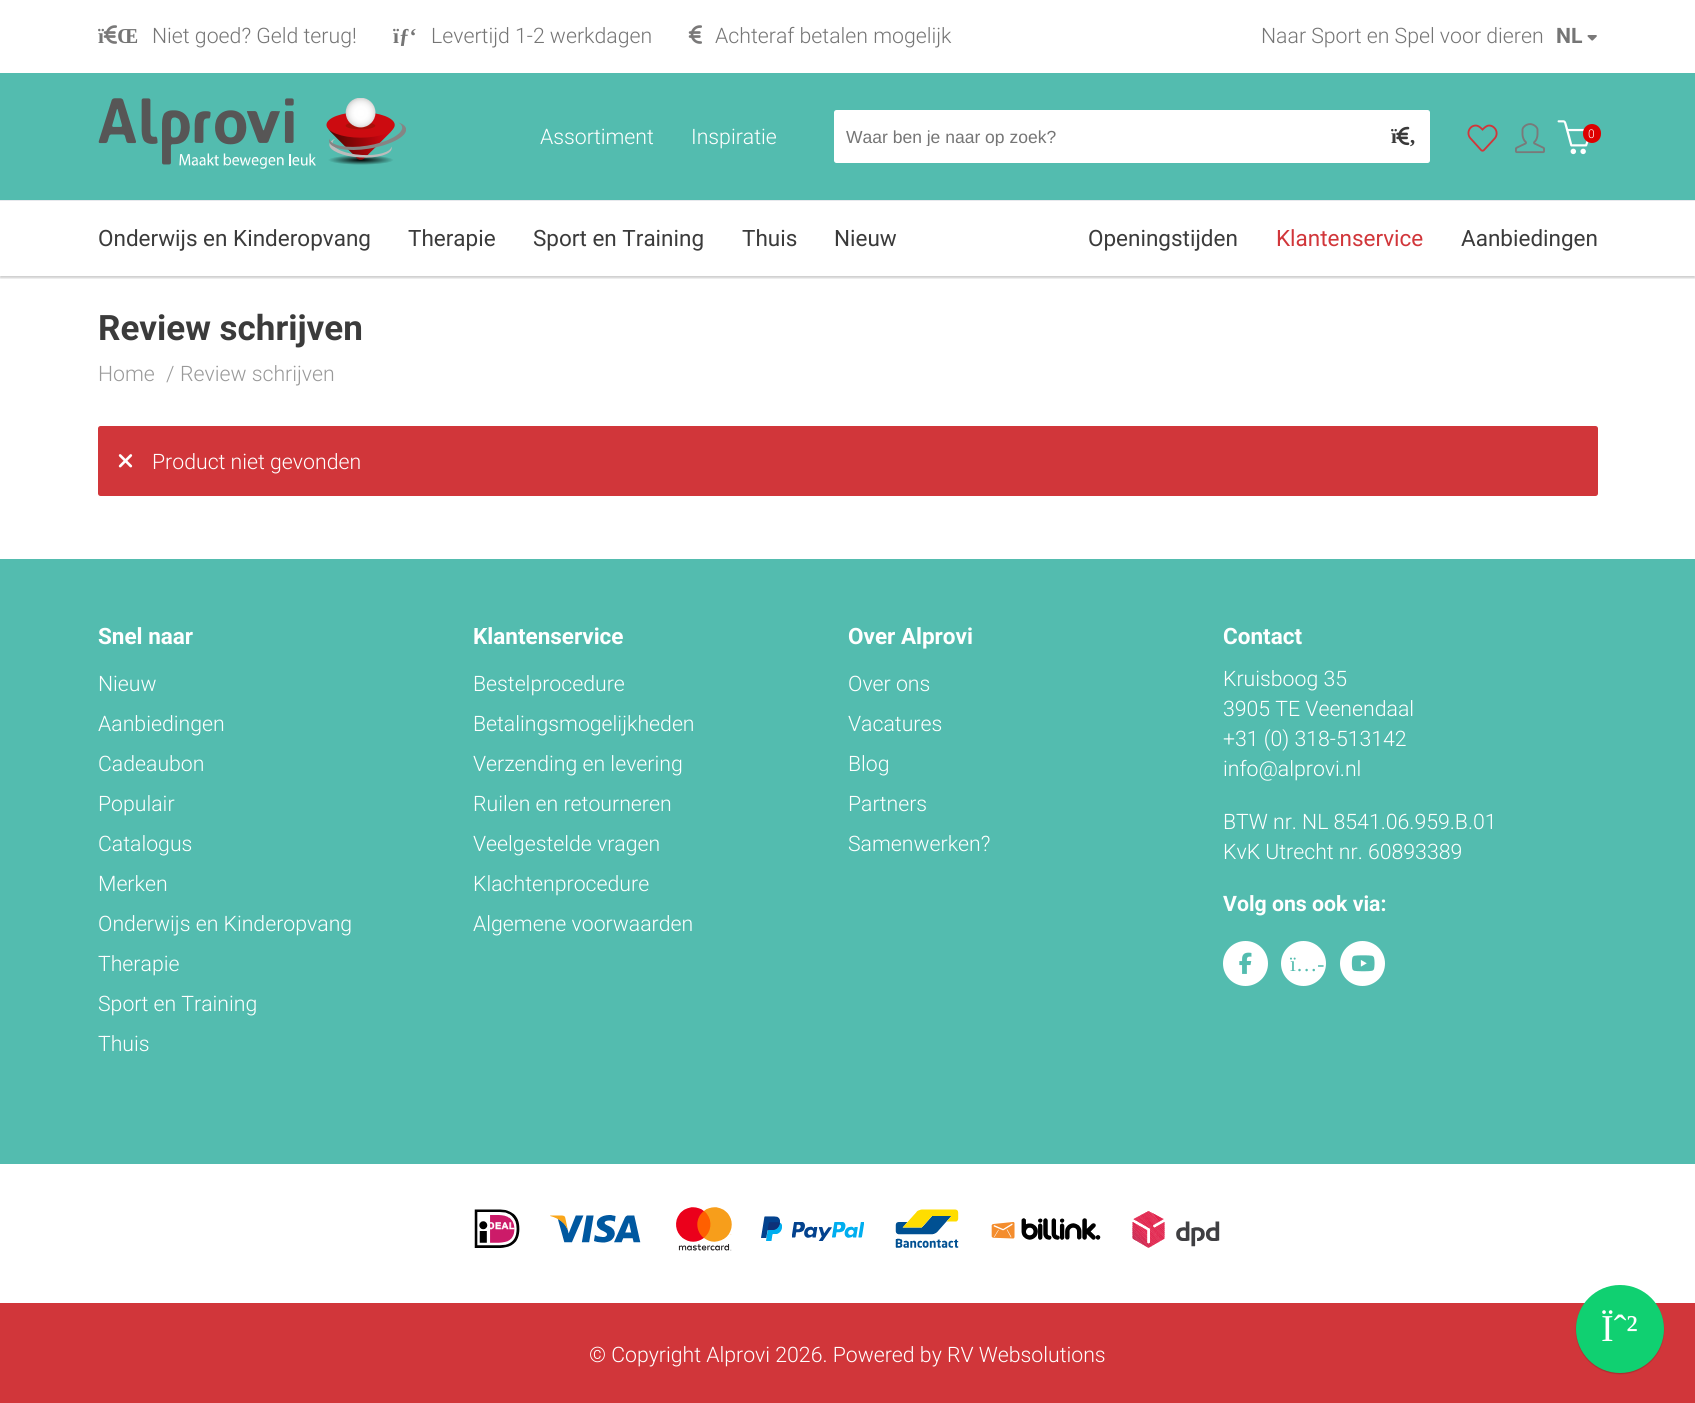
import math
import cairo



def rounded_rect(context, x, y, w, h, r):
    context.new_sub_path()
    for i, (u, v) in enumerate([(x + w - r, y + h - r), (x + r, y + h - r), (x + r, y + r), (x + w - r, y + r)]):
        context.arc(u, v, r, i * math.pi / 2, (i + 1) * math.pi / 2)
    context.close_path()


def draw_shadow(context, x, y, w, h, r, blur, alpha):
    context.push_group_with_content(cairo.Content.ALPHA)
    context.set_operator(cairo.Operator.SOURCE)
    for i in range(15, -16, -2):
        e = blur * i / 6
        if min(w, h) + 2 * e > 0:
            context.set_source_rgba(0, 0, 0, alpha * math.erfc((i - 1) / 8.5) / 2)
            rounded_rect(context, x - e, y - e, w + 2 * e, h + 2 * e, max(0, min(r + e + blur * .6, min(w, h) / 2 + e)))
            context.fill()
    context.mask(context.pop_group())


def draw_image(context, path, x, y, w, h):
    context.save()
    context.set_source_surface(cairo.ImageSurface.create_from_png(path), x, y)
    context.rectangle(x, y, w, h)
    context.fill()
    context.restore()


def draw(context):
    context.set_source_rgb(1, 1, 1)
    context.paint()
    context.save()
    context.rectangle(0, 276, 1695, 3)
    context.clip()
    context.set_source_rgb(0, 0, 0)
    draw_shadow(context, 0, 1, 1695, 277, 0, 1, 0.2)
    context.restore()
    draw_image(context, "images/1.png", 103, 25, 14, 19)
    draw_image(context, "images/1.png", 688, 25, 14, 19)
    draw_image(context, "images/2.png", 1587, 35, 10, 6)
    context.set_source_rgb(83 / 255, 188 / 255, 175 / 255)
    context.rectangle(0, 73, 1695, 127)
    context.fill()
    draw_image(context, "images/3.png", 98, 98, 308, 71)
    context.set_source_rgb(1, 1, 1)
    rounded_rect(context, 834, 110, 596, 53, 2.5)
    context.fill()
    draw_image(context, "images/4.png", 1396, 126, 14, 20)
    draw_image(context, "images/5.png", 1467, 124, 31, 28)
    draw_image(context, "images/6.png", 1515, 123, 30, 31)
    draw_image(context, "images/7.png", 1557, 120, 32, 35)
    context.set_source_rgb(222 / 255, 0, 0)
    rounded_rect(context, 1583, 124, 18, 19, 9)
    context.fill()
    context.set_source_rgb(231 / 255, 233 / 255, 237 / 255)
    context.rectangle(0, 200, 1695, 1)
    context.fill()
    context.set_source_rgb(209 / 255, 54 / 255, 58 / 255)
    rounded_rect(context, 98, 426, 1500, 70, 2.5)
    context.fill()
    draw_image(context, "images/8.png", 118, 454, 15, 14)
    context.set_source_rgb(83 / 255, 188 / 255, 175 / 255)
    context.rectangle(0, 559, 1695, 605)
    context.fill()
    context.set_source_rgb(1, 1, 1)
    context.arc(1245.5, 963.5, 22.5, 0, 2 * math.pi)
    context.fill()
    draw_image(context, "images/9.png", 1239, 952, 13, 22)
    context.arc(1303.5, 963.5, 22.5, 0, 2 * math.pi)
    context.fill()
    context.arc(1362.5, 963.5, 22.5, 0, 2 * math.pi)
    context.fill()
    draw_image(context, "images/10.png", 1351, 955, 24, 17)
    draw_image(context, "images/11.png", 474, 1209, 46, 39)
    draw_image(context, "images/12.png", 550, 1215, 91, 28)
    draw_image(context, "images/13.png", 676, 1207, 56, 44)
    draw_image(context, "images/14.png", 761, 1216, 103, 25)
    draw_image(context, "images/15.png", 895, 1209, 64, 39)
    draw_image(context, "images/16.png", 991, 1218, 110, 22)
    draw_image(context, "images/17.png", 1132, 1211, 88, 37)
    context.set_source_rgb(209 / 255, 54 / 255, 58 / 255)
    context.rectangle(0, 1303, 1695, 100)
    context.fill()
    context.set_source_rgb(0, 0, 0)
    draw_shadow(context, 1576, 1286, 88, 88, 44, 0.5, 0.19)
    context.set_source_rgb(16 / 255, 208 / 255, 113 / 255)
    context.arc(1620, 1329, 44, 0, 2 * math.pi)
    context.fill()
    context.select_font_face("Liberation Serif", cairo.FontSlant.NORMAL, cairo.FontWeight.BOLD)
    context.set_font_size(21.25)
    context.set_source_rgb(117 / 255, 117 / 255, 117 / 255)
    context.move_to(98, 43)
    context.show_text("ï")
    context.move_to(117, 43)
    context.show_text("Œ")
    context.select_font_face("Roboto Light")
    context.move_to(152, 43)
    context.show_text("Niet goed? Geld terug!")
    context.select_font_face("Liberation Serif", cairo.FontSlant.NORMAL, cairo.FontWeight.BOLD)
    context.move_to(393, 43)
    context.show_text("ïƒ‘")
    context.select_font_face("Roboto Light")
    context.move_to(431, 43)
    context.show_text("Levertijd 1-2 werkdagen")
    context.move_to(715, 43)
    context.show_text("Achteraf betalen mogelijk")
    context.move_to(1261, 43)
    context.show_text("Naar Sport en Spel voor dieren")
    context.select_font_face("Roboto", cairo.FontSlant.NORMAL, cairo.FontWeight.BOLD)
    context.move_to(1556, 43)
    context.show_text("NL")
    context.select_font_face("Roboto Light")
    context.set_source_rgb(1, 1, 1)
    context.move_to(540, 144)
    context.show_text("Assortiment")
    context.move_to(691, 144)
    context.show_text("Inspiratie")
    context.save()
    context.rectangle(846, 126, 569, 20)
    context.clip()
    context.select_font_face("Liberation Sans")
    context.set_font_size(17.5)
    context.set_source_rgb(117 / 255, 117 / 255, 117 / 255)
    context.move_to(846, 143)
    context.show_text("Waar ben je naar op zoek?")
    context.restore()
    context.select_font_face("Liberation Serif", cairo.FontSlant.NORMAL, cairo.FontWeight.BOLD)
    context.set_font_size(21)
    context.set_source_rgb(59 / 255, 59 / 255, 59 / 255)
    context.move_to(1391, 143)
    context.show_text("ï")
    context.move_to(1409, 143)
    context.show_text("‚")
    context.select_font_face("Roboto Light")
    context.set_font_size(12)
    context.set_source_rgb(1, 1, 1)
    context.move_to(1588, 138)
    context.show_text("0")
    context.select_font_face("Roboto")
    context.set_font_size(22.5)
    context.set_source_rgb(59 / 255, 59 / 255, 59 / 255)
    context.move_to(98, 246)
    context.show_text("Onderwijs en Kinderopvang")
    context.move_to(408, 246)
    context.show_text("Therapie")
    context.move_to(533, 246)
    context.show_text("Sport en Training")
    context.move_to(742, 246)
    context.show_text("Thuis")
    context.move_to(834, 246)
    context.show_text("Nieuw")
    context.move_to(1088, 246)
    context.show_text("Openingstijden")
    context.set_source_rgb(209 / 255, 54 / 255, 58 / 255)
    context.move_to(1276, 246)
    context.show_text("Klantenservice")
    context.set_source_rgb(59 / 255, 59 / 255, 59 / 255)
    context.move_to(1461, 246)
    context.show_text("Aanbiedingen")
    context.select_font_face("Roboto", cairo.FontSlant.NORMAL, cairo.FontWeight.BOLD)
    context.set_font_size(35)
    context.move_to(98, 340)
    context.show_text("Review schrijven")
    context.select_font_face("Roboto Light")
    context.set_font_size(21.25)
    context.set_source_rgb(153 / 255, 153 / 255, 153 / 255)
    context.move_to(98, 381)
    context.show_text("Home")
    context.move_to(166, 381)
    context.show_text("/")
    context.move_to(180, 381)
    context.show_text("Review schrijven")
    context.set_source_rgb(1, 1, 1)
    context.move_to(152, 469)
    context.show_text("Product niet gevonden")
    context.select_font_face("Roboto", cairo.FontSlant.NORMAL, cairo.FontWeight.BOLD)
    context.set_font_size(22.5)
    context.move_to(98, 644)
    context.show_text("Snel naar")
    context.select_font_face("Roboto Light")
    context.set_font_size(21.25)
    context.move_to(98, 691)
    context.show_text("Nieuw")
    context.move_to(98, 731)
    context.show_text("Aanbiedingen")
    context.move_to(98, 771)
    context.show_text("Cadeaubon")
    context.move_to(98, 811)
    context.show_text("Populair")
    context.move_to(98, 851)
    context.show_text("Catalogus")
    context.move_to(98, 891)
    context.show_text("Merken")
    context.move_to(98, 931)
    context.show_text("Onderwijs en Kinderopvang")
    context.move_to(98, 971)
    context.show_text("Therapie")
    context.move_to(98, 1011)
    context.show_text("Sport en Training")
    context.move_to(98, 1051)
    context.show_text("Thuis")
    context.select_font_face("Roboto", cairo.FontSlant.NORMAL, cairo.FontWeight.BOLD)
    context.set_font_size(22.5)
    context.move_to(473, 644)
    context.show_text("Klantenservice")
    context.select_font_face("Roboto Light")
    context.set_font_size(21.25)
    context.move_to(473, 691)
    context.show_text("Bestelprocedure")
    context.move_to(473, 731)
    context.show_text("Betalingsmogelijkheden")
    context.move_to(473, 771)
    context.show_text("Verzending en levering")
    context.move_to(473, 811)
    context.show_text("Ruilen en retourneren")
    context.move_to(473, 851)
    context.show_text("Veelgestelde vragen")
    context.move_to(473, 891)
    context.show_text("Klachtenprocedure")
    context.move_to(473, 931)
    context.show_text("Algemene voorwaarden")
    context.select_font_face("Roboto", cairo.FontSlant.NORMAL, cairo.FontWeight.BOLD)
    context.set_font_size(22.5)
    context.move_to(848, 644)
    context.show_text("Over Alprovi")
    context.select_font_face("Roboto Light")
    context.set_font_size(21.25)
    context.move_to(848, 691)
    context.show_text("Over ons")
    context.move_to(848, 731)
    context.show_text("Vacatures")
    context.move_to(848, 771)
    context.show_text("Blog")
    context.move_to(848, 811)
    context.show_text("Partners")
    context.move_to(848, 851)
    context.show_text("Samenwerken?")
    context.select_font_face("Roboto", cairo.FontSlant.NORMAL, cairo.FontWeight.BOLD)
    context.set_font_size(22.5)
    context.move_to(1223, 644)
    context.show_text("Contact")
    context.select_font_face("Roboto Light")
    context.set_font_size(21.25)
    context.move_to(1223, 686)
    context.show_text("Kruisboog 35")
    context.move_to(1223, 716)
    context.show_text("3905 TE Veenendaal")
    context.move_to(1223, 746)
    context.show_text("+31 (0) 318-513142")
    context.move_to(1223, 776)
    context.show_text("info@alprovi.nl")
    context.move_to(1223, 829)
    context.show_text("BTW nr. NL 8541.06.959.B.01")
    context.move_to(1223, 859)
    context.show_text("KvK Utrecht nr. 60893389")
    context.select_font_face("Roboto", cairo.FontSlant.NORMAL, cairo.FontWeight.BOLD)
    context.move_to(1223, 911)
    context.show_text("Volg ons ook via:")
    context.select_font_face("Liberation Serif")
    context.set_source_rgb(83 / 255, 188 / 255, 175 / 255)
    context.move_to(1290, 971)
    context.show_text("ï…-")
    context.select_font_face("Roboto Light")
    context.set_source_rgb(1, 1, 1)
    context.move_to(589, 1362)
    context.show_text("© Copyright Alprovi 2026. Powered by RV Websolutions")
    context.select_font_face("Liberation Serif")
    context.set_font_size(38)
    context.move_to(1601, 1341)
    context.show_text("Ïˆ²")


surface = cairo.ImageSurface(cairo.Format.RGB24, 1695, 1403)
context = cairo.Context(surface)
options = cairo.FontOptions()
options.set_hint_metrics(cairo.HintMetrics.OFF)
options.set_hint_style(cairo.HintStyle.NONE)
context.set_font_options(options)
context.set_miter_limit(4)
draw(context)
surface.write_to_png("out.png")
